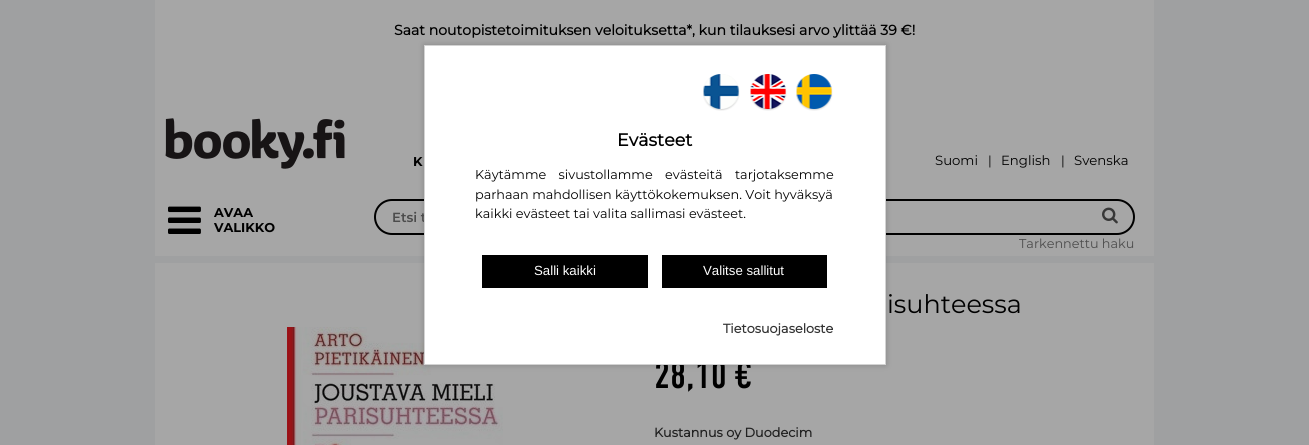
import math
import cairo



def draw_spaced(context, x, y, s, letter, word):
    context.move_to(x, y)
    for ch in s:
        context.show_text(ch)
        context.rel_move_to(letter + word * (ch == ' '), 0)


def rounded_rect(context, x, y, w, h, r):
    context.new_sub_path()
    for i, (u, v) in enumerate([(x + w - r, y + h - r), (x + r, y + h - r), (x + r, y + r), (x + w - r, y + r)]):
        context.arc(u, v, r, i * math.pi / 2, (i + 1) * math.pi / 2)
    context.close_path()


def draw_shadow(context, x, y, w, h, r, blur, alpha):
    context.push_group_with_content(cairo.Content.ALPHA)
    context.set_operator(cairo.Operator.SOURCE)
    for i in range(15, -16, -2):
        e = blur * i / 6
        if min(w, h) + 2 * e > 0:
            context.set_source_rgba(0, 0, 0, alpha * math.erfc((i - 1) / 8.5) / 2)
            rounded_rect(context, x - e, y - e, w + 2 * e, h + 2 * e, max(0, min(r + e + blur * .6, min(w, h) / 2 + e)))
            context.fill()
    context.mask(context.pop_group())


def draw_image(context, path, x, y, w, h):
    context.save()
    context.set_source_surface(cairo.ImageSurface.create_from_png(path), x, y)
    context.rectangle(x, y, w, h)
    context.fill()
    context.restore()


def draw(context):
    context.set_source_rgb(159 / 255, 160 / 255, 161 / 255)
    context.paint()
    context.set_source_rgb(166 / 255, 166 / 255, 166 / 255)
    context.rectangle(155, 0, 999, 64)
    context.fill()
    context.rectangle(155, 64, 999, 128)
    context.fill()
    draw_image(context, "images/1.png", 165, 118, 180, 51)
    context.rectangle(155, 192, 999, 64)
    context.fill()
    draw_image(context, "images/2.png", 168, 206, 33, 28)
    rounded_rect(context, 375, 200, 759, 34, 17)
    context.set_source_rgb(0, 0, 0)
    context.stroke()
    draw_image(context, "images/3.png", 1102, 207, 16, 17)
    context.set_source_rgb(166 / 255, 166 / 255, 166 / 255)
    context.rectangle(155, 263, 999, 182)
    context.fill()
    draw_image(context, "images/4.png", 287, 327, 216, 118)
    context.set_source_rgb(0, 0, 0)
    draw_shadow(context, 424, 45, 462, 320, 0, 3, 0.2)
    context.select_font_face("Montserrat", cairo.FontSlant.NORMAL, cairo.FontWeight.BOLD)
    context.set_font_size(14.1)
    context.set_source_rgb(0, 0, 0)
    context.move_to(394, 35)
    context.show_text("Saat noutopistetoimituksen veloituksetta*, kun tilauksesi arvo ylittää 39 €!")
    context.select_font_face("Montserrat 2", cairo.FontSlant.NORMAL, cairo.FontWeight.BOLD)
    context.set_font_size(12.8)
    context.move_to(413, 166)
    context.show_text("K")
    context.select_font_face("Montserrat")
    context.set_font_size(13.25)
    context.move_to(935, 165)
    context.show_text("Suomi")
    context.set_font_size(12.8)
    context.move_to(988, 165)
    context.show_text("|")
    context.set_font_size(13.25)
    context.move_to(1001, 165)
    context.show_text("English")
    context.set_font_size(12.8)
    context.move_to(1061, 165)
    context.show_text("|")
    context.set_font_size(13.25)
    context.move_to(1074, 165)
    context.show_text("Svenska")
    context.select_font_face("Montserrat 2", cairo.FontSlant.NORMAL, cairo.FontWeight.BOLD)
    context.set_font_size(12.8)
    context.move_to(214, 217)
    context.show_text("AVAA")
    context.move_to(214, 232)
    context.show_text("VALIKKO")
    context.select_font_face("Montserrat SemiBold")
    context.set_font_size(13.25)
    context.set_source_rgb(76 / 255, 76 / 255, 76 / 255)
    context.move_to(392, 222)
    context.show_text("Etsi t")
    context.select_font_face("Montserrat")
    context.set_font_size(12.8)
    context.move_to(1019, 248)
    context.show_text("Tarkennettu haku")
    context.set_font_size(25.5)
    context.set_source_rgb(0, 0, 0)
    context.move_to(887, 313)
    context.show_text("isuhteessa")
    context.select_font_face("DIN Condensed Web")
    context.set_font_size(38.5)
    context.move_to(654, 388)
    context.show_text("28,10 €")
    context.select_font_face("Montserrat", cairo.FontSlant.NORMAL, cairo.FontWeight.BOLD)
    context.set_font_size(12.8)
    context.set_source_rgb(33 / 255, 33 / 255, 33 / 255)
    context.move_to(654, 437)
    context.show_text("Kustannus oy Duodecim")
    context.set_source_rgb(1, 1, 1)
    context.rectangle(424.5, 45.5, 461, 319)
    context.fill_preserve()
    context.set_source_rgb(211 / 255, 211 / 255, 211 / 255)
    context.set_line_width(1)
    context.stroke()
    draw_image(context, "images/5.png", 703, 74, 37, 37)
    draw_image(context, "images/6.png", 750, 74, 37, 37)
    draw_image(context, "images/7.png", 796, 74, 37, 37)
    context.set_font_size(17.5)
    context.set_source_rgb(0, 0, 0)
    context.move_to(617, 146)
    context.show_text("Evästeet")
    context.select_font_face("Montserrat")
    context.set_font_size(12.8)
    draw_spaced(context, 475, 179, "Käytämme sivustollamme evästeitä tarjotaksemme", 0, 9)
    context.move_to(475, 199)
    context.show_text("parhaan mahdollisen käyttökokemuksen. Voit hyväksyä")
    context.move_to(475, 218)
    context.show_text("kaikki evästeet tai valita sallimasi evästeet.")
    context.rectangle(482, 255, 166, 33)
    context.fill()
    context.select_font_face("Liberation Sans")
    context.set_font_size(13.25)
    context.set_source_rgb(1, 1, 1)
    context.move_to(534, 275)
    context.show_text("Salli kaikki")
    context.set_source_rgb(0, 0, 0)
    context.rectangle(662, 255, 165, 33)
    context.fill()
    context.set_source_rgb(1, 1, 1)
    context.move_to(703, 275)
    context.show_text("Valitse sallitut")
    context.select_font_face("Montserrat", cairo.FontSlant.NORMAL, cairo.FontWeight.BOLD)
    context.set_font_size(12.8)
    context.set_source_rgb(51 / 255, 51 / 255, 51 / 255)
    context.move_to(723, 333)
    context.show_text("Tietosuojaseloste")


surface = cairo.ImageSurface(cairo.Format.RGB24, 1309, 445)
context = cairo.Context(surface)
options = cairo.FontOptions()
options.set_hint_metrics(cairo.HintMetrics.OFF)
options.set_hint_style(cairo.HintStyle.NONE)
context.set_font_options(options)
context.set_miter_limit(4)
draw(context)
surface.write_to_png("out.png")
